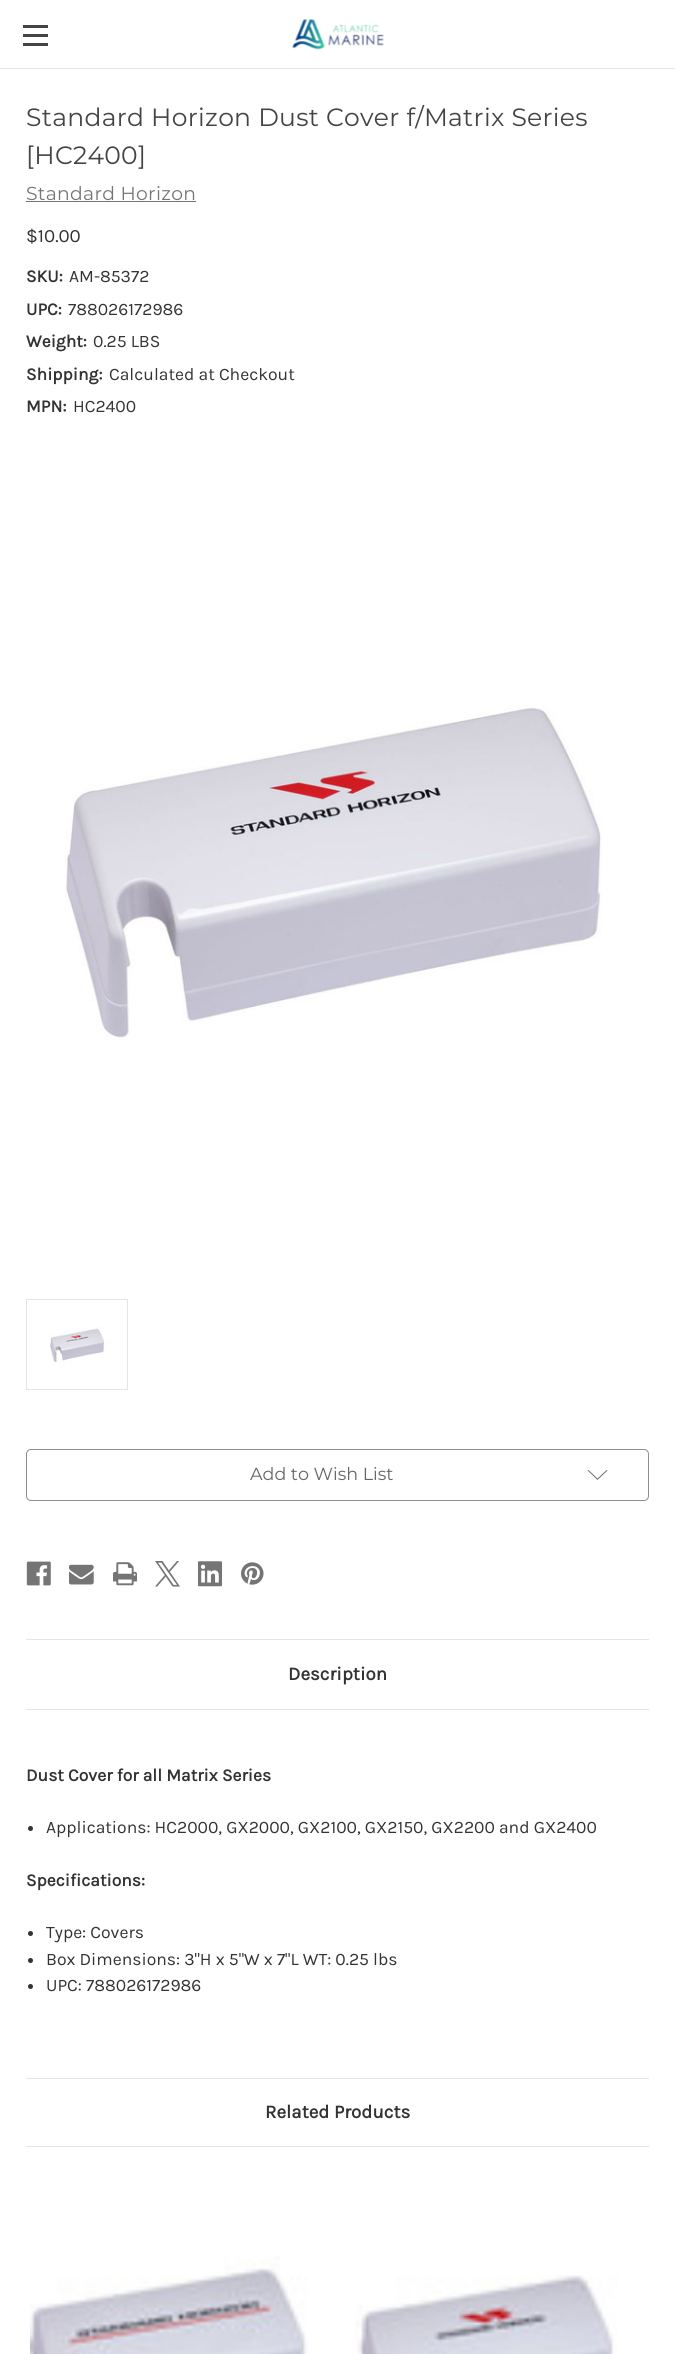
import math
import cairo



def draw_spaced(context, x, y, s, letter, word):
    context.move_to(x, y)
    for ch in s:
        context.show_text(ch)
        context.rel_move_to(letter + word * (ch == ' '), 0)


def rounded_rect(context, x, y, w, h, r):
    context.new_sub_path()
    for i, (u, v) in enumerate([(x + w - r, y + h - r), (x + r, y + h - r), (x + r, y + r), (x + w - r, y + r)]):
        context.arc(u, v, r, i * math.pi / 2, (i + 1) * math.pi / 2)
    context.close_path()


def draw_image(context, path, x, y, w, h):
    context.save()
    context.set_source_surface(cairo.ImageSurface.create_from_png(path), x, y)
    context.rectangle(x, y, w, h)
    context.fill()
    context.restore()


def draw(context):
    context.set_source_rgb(1, 1, 1)
    context.paint()
    context.set_source_rgb(229 / 255, 229 / 255, 229 / 255)
    context.rectangle(0, 68, 675, 1)
    context.fill()
    context.set_source_rgb(68 / 255, 68 / 255, 68 / 255)
    context.rectangle(23, 34, 25, 3)
    context.fill()
    context.rectangle(23, 25, 25, 3)
    context.fill()
    context.rectangle(23, 43, 25, 3)
    context.fill()
    draw_image(context, "images/1.png", 292, 19, 92, 31)
    context.set_source_rgb(117 / 255, 117 / 255, 117 / 255)
    context.rectangle(26, 201, 170, 1)
    context.fill()
    draw_image(context, "images/2.png", 65, 706, 538, 334)
    context.rectangle(26.5, 1299.5, 101, 90)
    context.set_source_rgb(229 / 255, 229 / 255, 229 / 255)
    context.set_line_width(1)
    context.stroke()
    draw_image(context, "images/3.png", 50, 1326, 54, 37)
    rounded_rect(context, 26.5, 1449.5, 622, 51, 4.5)
    context.set_source_rgb(143 / 255, 143 / 255, 143 / 255)
    context.stroke()
    context.set_source_rgb(117 / 255, 117 / 255, 117 / 255)
    context.set_fill_rule(cairo.FillRule.EVEN_ODD)
    context.new_path()
    context.move_to(597.5, 1478.5)
    context.line_to(606.5, 1470)
    context.line_to(607.5, 1470.5)
    context.line_to(597.5, 1480)
    context.line_to(587.5, 1470.5)
    context.line_to(588.5, 1470)
    context.close_path()
    context.fill()
    draw_image(context, "images/4.png", 26, 1561, 25, 25)
    draw_image(context, "images/5.png", 69, 1564, 25, 21)
    draw_image(context, "images/6.png", 113, 1562, 24, 24)
    draw_image(context, "images/7.png", 155, 1561, 25, 26)
    draw_image(context, "images/8.png", 198, 1561, 24, 26)
    draw_image(context, "images/9.png", 241, 1562, 23, 23)
    context.set_source_rgb(229 / 255, 229 / 255, 229 / 255)
    context.rectangle(26, 1709, 623, 1)
    context.fill()
    context.rectangle(26, 1639, 623, 1)
    context.fill()
    context.set_source_rgb(51 / 255, 51 / 255, 51 / 255)
    context.arc(30.5, 1828.5, 2.5, 0, 2 * math.pi)
    context.fill()
    context.arc(30.5, 1933.5, 2.5, 0, 2 * math.pi)
    context.fill()
    context.arc(30.5, 1960.5, 2.5, 0, 2 * math.pi)
    context.fill()
    context.arc(30.5, 1986.5, 2.5, 0, 2 * math.pi)
    context.fill()
    context.set_source_rgb(229 / 255, 229 / 255, 229 / 255)
    context.rectangle(26, 2146, 623, 1)
    context.fill()
    context.rectangle(26, 2078, 623, 1)
    context.fill()
    draw_image(context, "images/10.png", 30, 2256, 278, 98)
    draw_image(context, "images/11.png", 355, 2275, 263, 79)
    context.select_font_face("Montserrat")
    context.set_font_size(25)
    context.set_source_rgb(68 / 255, 68 / 255, 68 / 255)
    draw_spaced(context, 26, 126, "Standard Horizon Dust Cover f/Matrix Series", 0.3, 0)
    draw_spaced(context, 26, 164, "[HC2400]", 0.3, 0)
    context.set_font_size(18.75)
    context.set_source_rgb(117 / 255, 117 / 255, 117 / 255)
    draw_spaced(context, 26, 200, "Standard Horizon", 0.3, 0)
    context.select_font_face("Karla")
    context.set_source_rgb(51 / 255, 51 / 255, 51 / 255)
    context.move_to(26, 242)
    context.show_text("$10.00")
    context.select_font_face("Karla", cairo.FontSlant.NORMAL, cairo.FontWeight.BOLD)
    context.set_font_size(17.5)
    context.move_to(26, 282)
    context.show_text("SKU:")
    context.select_font_face("Karla")
    context.move_to(69, 282)
    context.show_text("AM-85372")
    context.select_font_face("Karla", cairo.FontSlant.NORMAL, cairo.FontWeight.BOLD)
    context.move_to(26, 315)
    context.show_text("UPC:")
    context.select_font_face("Karla")
    context.move_to(68, 315)
    context.show_text("788026172986")
    context.select_font_face("Karla", cairo.FontSlant.NORMAL, cairo.FontWeight.BOLD)
    context.move_to(26, 347)
    context.show_text("Weight:")
    context.select_font_face("Karla")
    context.move_to(93, 347)
    context.show_text("0.25 LBS")
    context.select_font_face("Karla", cairo.FontSlant.NORMAL, cairo.FontWeight.BOLD)
    context.move_to(26, 380)
    context.show_text("Shipping:")
    context.select_font_face("Karla")
    context.move_to(109, 380)
    context.show_text("Calculated at Checkout")
    context.select_font_face("Karla", cairo.FontSlant.NORMAL, cairo.FontWeight.BOLD)
    context.move_to(26, 412)
    context.show_text("MPN:")
    context.select_font_face("Karla")
    context.move_to(73, 412)
    context.show_text("HC2400")
    context.select_font_face("Montserrat")
    context.set_source_rgb(102 / 255, 102 / 255, 102 / 255)
    context.move_to(250, 1480)
    context.show_text("Add to Wish List")
    context.select_font_face("Karla", cairo.FontSlant.NORMAL, cairo.FontWeight.BOLD)
    context.set_font_size(18.75)
    context.set_source_rgb(51 / 255, 51 / 255, 51 / 255)
    context.move_to(288, 1680)
    context.show_text("Description")
    context.set_font_size(17.5)
    context.move_to(26, 1781)
    context.show_text("Dust Cover for all Matrix Series")
    context.select_font_face("Karla")
    context.move_to(46, 1833)
    context.show_text("Applications: HC2000, GX2000, GX2100, GX2150, GX2200 and GX2400")
    context.select_font_face("Karla", cairo.FontSlant.NORMAL, cairo.FontWeight.BOLD)
    context.move_to(26, 1886)
    context.show_text("Specifications:")
    context.select_font_face("Karla")
    context.move_to(46, 1938)
    context.show_text("Type: Covers")
    context.move_to(46, 1965)
    context.show_text("Box Dimensions: 3\"H x 5\"W x 7\"L WT: 0.25 lbs")
    context.move_to(46, 1991)
    context.show_text("UPC: 788026172986")
    context.select_font_face("Karla", cairo.FontSlant.NORMAL, cairo.FontWeight.BOLD)
    context.set_font_size(18.75)
    context.move_to(265, 2118)
    context.show_text("Related Products")


surface = cairo.ImageSurface(cairo.Format.RGB24, 675, 2354)
context = cairo.Context(surface)
options = cairo.FontOptions()
options.set_hint_metrics(cairo.HintMetrics.OFF)
options.set_hint_style(cairo.HintStyle.NONE)
context.set_font_options(options)
context.set_miter_limit(4)
draw(context)
surface.write_to_png("out.png")
